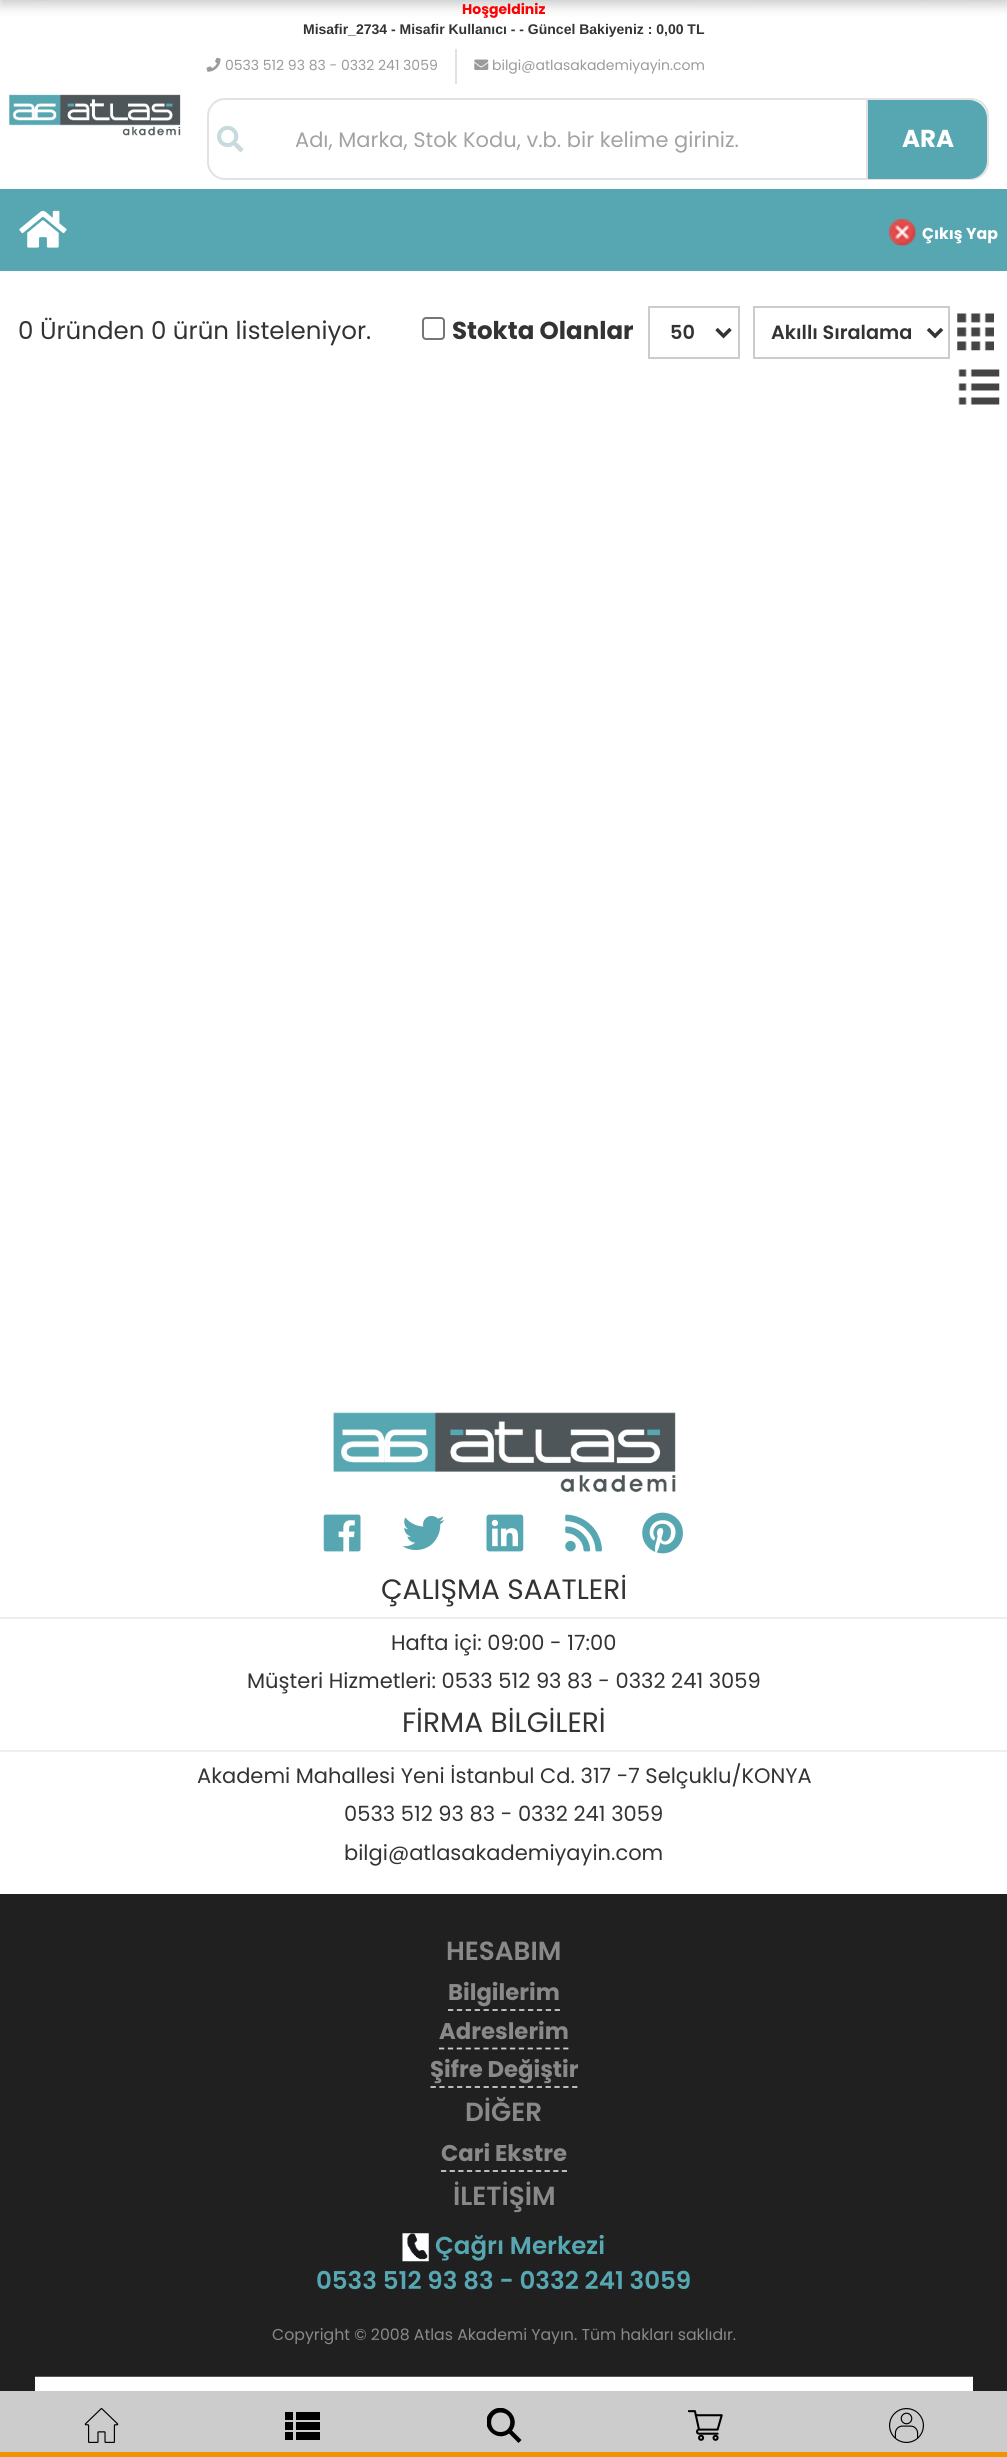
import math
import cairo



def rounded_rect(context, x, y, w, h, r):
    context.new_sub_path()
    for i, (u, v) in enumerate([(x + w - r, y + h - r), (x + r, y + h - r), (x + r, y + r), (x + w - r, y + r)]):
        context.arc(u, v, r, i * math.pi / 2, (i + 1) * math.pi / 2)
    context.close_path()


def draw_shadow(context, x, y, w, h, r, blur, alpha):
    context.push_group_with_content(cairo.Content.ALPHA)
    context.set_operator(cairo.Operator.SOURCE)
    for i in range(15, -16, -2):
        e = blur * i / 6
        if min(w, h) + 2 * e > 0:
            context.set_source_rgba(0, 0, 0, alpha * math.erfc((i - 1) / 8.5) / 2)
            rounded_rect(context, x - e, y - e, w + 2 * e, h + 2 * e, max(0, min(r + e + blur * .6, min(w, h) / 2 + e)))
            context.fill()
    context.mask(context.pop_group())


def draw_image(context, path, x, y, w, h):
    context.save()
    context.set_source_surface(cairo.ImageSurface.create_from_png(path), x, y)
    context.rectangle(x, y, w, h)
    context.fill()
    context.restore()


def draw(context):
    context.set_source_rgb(1, 1, 1)
    context.paint()
    context.set_source_rgb(204 / 255, 204 / 255, 204 / 255)
    draw_shadow(context, 0, -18, 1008, 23, 0, 6, 1)
    draw_image(context, "images/1.png", 0, 0, 1007, 1)
    draw_image(context, "images/2.png", 9, 94, 172, 42)
    context.set_source_rgb(226 / 255, 226 / 255, 226 / 255)
    context.rectangle(455, 49, 2, 35)
    context.fill()
    draw_image(context, "images/3.png", 206, 57, 15, 15)
    draw_image(context, "images/4.png", 474, 59, 15, 11)
    rounded_rect(context, 208, 99, 780, 80, 17)
    context.stroke()
    draw_image(context, "images/5.png", 217, 125, 27, 27)
    context.set_source_rgb(87 / 255, 167 / 255, 178 / 255)
    context.new_path()
    context.move_to(866, 100)
    context.line_to(969, 100)
    context.curve_to(979, 100, 987, 108, 987, 118)
    context.line_to(987, 161)
    context.curve_to(987, 171, 979, 179, 969, 179)
    context.line_to(866, 179)
    context.close_path()
    context.fill()
    context.set_source_rgb(224 / 255, 224 / 255, 224 / 255)
    context.rectangle(866, 100, 2, 79)
    context.fill()
    context.set_source_rgb(204 / 255, 204 / 255, 204 / 255)
    context.rectangle(0, 2391, 1007, 61)
    context.fill()
    context.set_source_rgb(243 / 255, 146 / 255, 0)
    context.rectangle(0, 2452, 1007, 5)
    context.fill()
    draw_image(context, "images/6.png", 84, 2408, 35, 35)
    context.set_source_rgb(0, 0, 0)
    context.rectangle(285, 2412, 8, 8)
    context.fill()
    context.rectangle(296, 2412, 24, 8)
    context.fill()
    context.rectangle(285, 2422, 8, 8)
    context.fill()
    context.rectangle(296, 2422, 24, 8)
    context.fill()
    context.rectangle(285, 2432, 8, 8)
    context.fill()
    context.rectangle(296, 2432, 24, 8)
    context.fill()
    context.save()
    context.rectangle(487, 2408, 35, 35)
    context.clip()
    context.new_path()
    context.move_to(512, 2430.5)
    context.curve_to(522, 2417, 503, 2399.5, 490.5, 2412)
    context.curve_to(478, 2424.5, 495.5, 2443.5, 509, 2433.5)
    context.line_to(518.5, 2443)
    context.line_to(521.5, 2440)
    context.close_path()
    context.move_to(500.5, 2432)
    context.curve_to(488, 2432, 488, 2412.5, 500.5, 2412.5)
    context.curve_to(513.5, 2412.5, 513.5, 2432, 500.5, 2432)
    context.close_path()
    context.fill()
    context.restore()
    draw_image(context, "images/7.png", 688, 2410, 35, 31)
    draw_image(context, "images/8.png", 889, 2408, 35, 35)
    context.set_source_rgb(87 / 255, 167 / 255, 178 / 255)
    context.rectangle(0, 189, 1007, 82)
    context.fill()
    draw_image(context, "images/9.png", 19, 210, 48, 38)
    draw_image(context, "images/10.png", 889, 219, 27, 27)
    rounded_rect(context, 423, 318, 21, 21, 3)
    context.set_source_rgb(118 / 255, 118 / 255, 118 / 255)
    context.stroke()
    context.rectangle(649, 307, 90, 51)
    context.set_source_rgb(204 / 255, 204 / 255, 204 / 255)
    context.stroke()
    context.new_path()
    context.move_to(716.5, 329)
    context.line_to(723.5, 336)
    context.line_to(730.5, 329)
    context.set_source_rgb(51 / 255, 51 / 255, 51 / 255)
    context.set_line_width(3.5)
    context.stroke()
    context.rectangle(754, 307, 195, 51)
    context.set_source_rgb(204 / 255, 204 / 255, 204 / 255)
    context.set_line_width(2)
    context.stroke()
    context.new_path()
    context.move_to(928, 329)
    context.line_to(935, 336)
    context.line_to(942, 329)
    context.set_source_rgb(51 / 255, 51 / 255, 51 / 255)
    context.set_line_width(3.5)
    context.stroke()
    draw_image(context, "images/11.png", 957, 313, 37, 38)
    draw_image(context, "images/12.png", 958, 369, 42, 36)
    draw_image(context, "images/13.png", 333, 1412, 343, 80)
    draw_image(context, "images/14.png", 323, 1514, 38, 38)
    draw_image(context, "images/15.png", 402, 1515, 43, 36)
    draw_image(context, "images/16.png", 486, 1514, 38, 38)
    draw_image(context, "images/17.png", 565, 1514, 37, 38)
    draw_image(context, "images/18.png", 642, 1512, 41, 42)
    context.set_source_rgb(238 / 255, 238 / 255, 238 / 255)
    context.rectangle(0, 1617, 1007, 2)
    context.fill()
    context.rectangle(0, 1750, 1007, 2)
    context.fill()
    context.set_source_rgb(32 / 255, 32 / 255, 32 / 255)
    context.rectangle(0, 1894, 1007, 497)
    context.fill()
    context.new_path()
    context.move_to(448, 2010)
    context.line_to(560, 2010)
    context.set_source_rgb(204 / 255, 204 / 255, 204 / 255)
    context.set_line_width(1.8)
    context.set_dash([5.25, 3.64])
    context.stroke()
    context.new_path()
    context.move_to(439, 2048.5)
    context.line_to(569, 2048.5)
    context.set_dash([5.25, 3.62])
    context.stroke()
    context.new_path()
    context.move_to(430.5, 2087)
    context.line_to(577.5, 2087)
    context.set_dash([5.25, 3.6])
    context.stroke()
    context.new_path()
    context.move_to(441, 2171)
    context.line_to(567, 2171)
    context.set_dash([5.25, 3.38])
    context.stroke()
    draw_image(context, "images/19.png", 402, 2233, 27, 29)
    draw_image(context, "images/20.png", 35, 2376, 938, 15)
    context.select_font_face("Poppins", cairo.FontSlant.NORMAL, cairo.FontWeight.BOLD)
    context.set_font_size(14)
    context.set_source_rgb(1, 0, 0)
    context.move_to(462, 14)
    context.show_text("Hoşgeldiniz")
    context.select_font_face("Liberation Sans", cairo.FontSlant.NORMAL, cairo.FontWeight.BOLD)
    context.set_source_rgb(51 / 255, 51 / 255, 51 / 255)
    context.move_to(303, 34)
    context.show_text("Misafir_2734 - Misafir Kullanıcı - - Güncel Bakiyeniz : 0,00 TL")
    context.select_font_face("Poppins")
    context.set_source_rgb(155 / 255, 155 / 255, 155 / 255)
    context.move_to(225, 70)
    context.show_text("0533 512 93 83 - 0332 241 3059")
    context.move_to(492, 70)
    context.show_text("bilgi@atlasakademiyayin.com")
    context.set_font_size(21)
    context.set_source_rgb(163 / 255, 163 / 255, 163 / 255)
    context.move_to(295, 147)
    context.show_text("Adı, Marka, Stok Kodu, v.b. bir kelime giriniz.")
    context.select_font_face("Poppins", cairo.FontSlant.NORMAL, cairo.FontWeight.BOLD)
    context.set_font_size(24.5)
    context.set_source_rgb(1, 1, 1)
    context.move_to(902, 147)
    context.show_text("ARA")
    context.set_font_size(15.75)
    context.move_to(922, 239)
    context.show_text("Çıkış Yap")
    context.select_font_face("Poppins")
    context.set_font_size(24.5)
    context.set_source_rgb(51 / 255, 51 / 255, 51 / 255)
    context.move_to(18, 339)
    context.show_text("0 Üründen 0 ürün listeleniyor.")
    context.select_font_face("Poppins", cairo.FontSlant.NORMAL, cairo.FontWeight.BOLD)
    context.move_to(452, 339)
    context.show_text("Stokta Olanlar")
    context.select_font_face("Poppins SemiBold")
    context.set_font_size(19.25)
    context.move_to(670, 339)
    context.show_text("50")
    context.move_to(771, 339)
    context.show_text("Akıllı Sıralama")
    context.select_font_face("Poppins")
    context.set_font_size(28)
    context.move_to(381, 1599)
    context.show_text("ÇALIŞMA SAATLERİ")
    context.set_font_size(21)
    context.move_to(391, 1650)
    context.show_text("Hafta içi: 09:00 - 17:00")
    context.move_to(247, 1688)
    context.show_text("Müşteri Hizmetleri: 0533 512 93 83 - 0332 241 3059")
    context.set_font_size(28)
    context.move_to(402, 1732)
    context.show_text("FİRMA BİLGİLERİ")
    context.set_font_size(21)
    context.move_to(197, 1783)
    context.show_text("Akademi Mahallesi Yeni İstanbul Cd. 317 -7 Selçuklu/KONYA")
    context.move_to(344, 1821)
    context.show_text("0533 512 93 83 - 0332 241 3059")
    context.move_to(344, 1860)
    context.show_text("bilgi@atlasakademiyayin.com")
    context.select_font_face("Poppins SemiBold")
    context.set_font_size(26.25)
    context.set_source_rgb(137 / 255, 137 / 255, 137 / 255)
    context.move_to(446, 1960)
    context.show_text("HESABIM")
    context.select_font_face("Poppins", cairo.FontSlant.NORMAL, cairo.FontWeight.BOLD)
    context.set_font_size(22.75)
    context.move_to(448, 2000)
    context.show_text("Bilgilerim")
    context.move_to(439, 2039)
    context.show_text("Adreslerim")
    context.move_to(430, 2077)
    context.show_text("Şifre Değiştir")
    context.select_font_face("Poppins SemiBold")
    context.set_font_size(26.25)
    context.move_to(465, 2121)
    context.show_text("DİĞER")
    context.select_font_face("Poppins", cairo.FontSlant.NORMAL, cairo.FontWeight.BOLD)
    context.set_font_size(22.75)
    context.move_to(441, 2161)
    context.show_text("Cari Ekstre")
    context.select_font_face("Poppins SemiBold")
    context.set_font_size(26.25)
    context.move_to(453, 2205)
    context.show_text("İLETİŞİM")
    context.set_font_size(24.5)
    context.set_source_rgb(87 / 255, 167 / 255, 178 / 255)
    context.move_to(435, 2254)
    context.show_text("Çağrı Merkezi")
    context.move_to(316, 2289)
    context.show_text("0533 512 93 83 - 0332 241 3059")
    context.select_font_face("Poppins")
    context.set_font_size(15.75)
    context.set_source_rgb(137 / 255, 137 / 255, 137 / 255)
    context.move_to(272, 2340)
    context.show_text("Copyright © 2008 Atlas Akademi Yayın. Tüm hakları saklıdır.")


surface = cairo.ImageSurface(cairo.Format.RGB24, 1007, 2457)
context = cairo.Context(surface)
options = cairo.FontOptions()
options.set_hint_metrics(cairo.HintMetrics.OFF)
options.set_hint_style(cairo.HintStyle.NONE)
context.set_font_options(options)
context.set_miter_limit(4)
draw(context)
surface.write_to_png("out.png")
